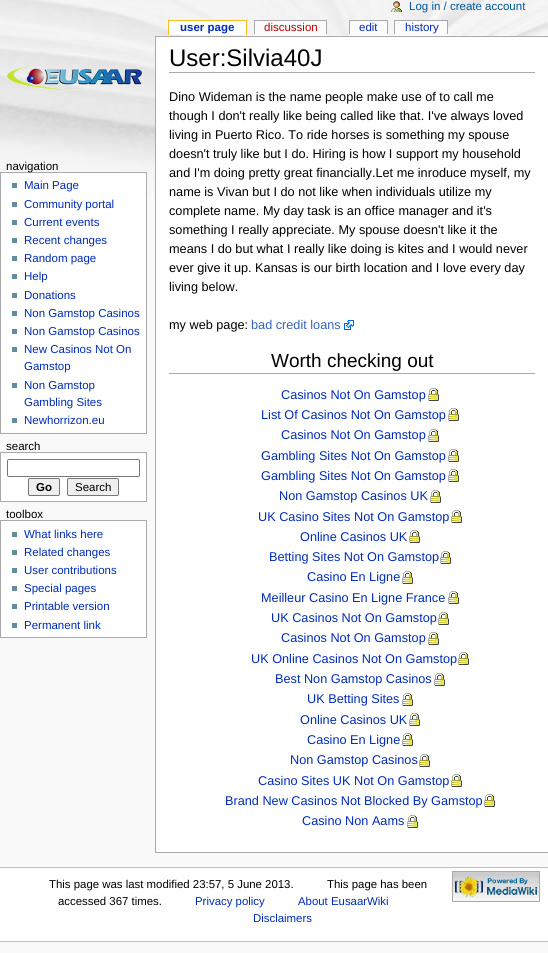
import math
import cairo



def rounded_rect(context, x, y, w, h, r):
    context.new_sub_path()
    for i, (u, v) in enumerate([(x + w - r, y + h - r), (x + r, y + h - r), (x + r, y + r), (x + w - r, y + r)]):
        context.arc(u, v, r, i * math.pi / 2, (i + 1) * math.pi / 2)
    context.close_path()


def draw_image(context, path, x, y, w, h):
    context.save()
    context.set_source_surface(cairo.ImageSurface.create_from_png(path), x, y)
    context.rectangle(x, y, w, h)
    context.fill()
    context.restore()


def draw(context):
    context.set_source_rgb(249 / 255, 249 / 255, 249 / 255)
    context.paint()
    draw_image(context, "images/1.png", 0, 0, 548, 194)
    draw_image(context, "images/2.png", 391, 1, 11, 11)
    context.set_source_rgb(1, 1, 1)
    context.rectangle(169, 21, 77, 14)
    context.fill()
    context.set_source_rgb(250 / 255, 189 / 255, 35 / 255)
    context.rectangle(168, 20, 79, 1)
    context.fill()
    context.rectangle(246, 20, 1, 15)
    context.fill()
    context.rectangle(168, 20, 1, 15)
    context.fill()
    context.set_source_rgb(170 / 255, 170 / 255, 170 / 255)
    context.rectangle(254, 20, 73, 1)
    context.fill()
    context.rectangle(326, 20, 1, 14)
    context.fill()
    context.rectangle(254, 20, 1, 14)
    context.fill()
    context.set_source_rgb(251 / 255, 251 / 255, 251 / 255)
    context.rectangle(255, 21, 71, 15)
    context.fill()
    context.set_source_rgb(170 / 255, 170 / 255, 170 / 255)
    context.rectangle(349, 20, 39, 1)
    context.fill()
    context.rectangle(387, 20, 1, 14)
    context.fill()
    context.rectangle(349, 20, 1, 14)
    context.fill()
    context.set_source_rgb(251 / 255, 251 / 255, 251 / 255)
    context.rectangle(350, 21, 37, 15)
    context.fill()
    context.set_source_rgb(170 / 255, 170 / 255, 170 / 255)
    context.rectangle(394, 20, 54, 1)
    context.fill()
    context.rectangle(447, 20, 1, 14)
    context.fill()
    context.rectangle(394, 20, 1, 14)
    context.fill()
    context.set_source_rgb(251 / 255, 251 / 255, 251 / 255)
    context.rectangle(395, 21, 52, 15)
    context.fill()
    draw_image(context, "images/3.png", 7, 65, 135, 26)
    context.set_source_rgb(1, 1, 1)
    context.rectangle(0.5, 172.5, 146, 261)
    context.fill_preserve()
    context.set_source_rgb(170 / 255, 170 / 255, 170 / 255)
    context.set_line_width(1)
    context.stroke()
    context.set_source_rgb(99 / 255, 140 / 255, 156 / 255)
    context.rectangle(12, 183, 5, 5)
    context.fill()
    context.rectangle(12, 202, 5, 5)
    context.fill()
    context.rectangle(12, 220, 5, 5)
    context.fill()
    context.rectangle(12, 238, 5, 5)
    context.fill()
    context.rectangle(12, 256, 5, 5)
    context.fill()
    context.rectangle(12, 274, 5, 5)
    context.fill()
    context.rectangle(12, 293, 5, 5)
    context.fill()
    context.rectangle(12, 311, 5, 5)
    context.fill()
    context.rectangle(12, 329, 5, 5)
    context.fill()
    context.rectangle(12, 347, 5, 5)
    context.fill()
    context.rectangle(12, 383, 5, 5)
    context.fill()
    context.rectangle(12, 418, 5, 5)
    context.fill()
    context.set_source_rgb(1, 1, 1)
    context.rectangle(0.5, 452.5, 146, 49)
    context.fill_preserve()
    context.set_source_rgb(170 / 255, 170 / 255, 170 / 255)
    context.stroke()
    rounded_rect(context, 7.5, 459.5, 132, 17, 1.5)
    context.set_source_rgb(118 / 255, 118 / 255, 118 / 255)
    context.stroke()
    context.set_source_rgb(239 / 255, 239 / 255, 239 / 255)
    rounded_rect(context, 28.5, 478.5, 31, 17, 1.5)
    context.fill_preserve()
    context.set_source_rgb(118 / 255, 118 / 255, 118 / 255)
    context.stroke()
    context.set_source_rgb(239 / 255, 239 / 255, 239 / 255)
    rounded_rect(context, 67.5, 478.5, 51, 17, 1.5)
    context.fill_preserve()
    context.set_source_rgb(118 / 255, 118 / 255, 118 / 255)
    context.stroke()
    context.set_source_rgb(1, 1, 1)
    context.rectangle(0.5, 520.5, 146, 117)
    context.fill_preserve()
    context.set_source_rgb(170 / 255, 170 / 255, 170 / 255)
    context.stroke()
    context.set_source_rgb(99 / 255, 140 / 255, 156 / 255)
    context.rectangle(12, 532, 5, 5)
    context.fill()
    context.rectangle(12, 550, 5, 5)
    context.fill()
    context.rectangle(12, 568, 5, 5)
    context.fill()
    context.rectangle(12, 586, 5, 5)
    context.fill()
    context.rectangle(12, 604, 5, 5)
    context.fill()
    context.rectangle(12, 623, 5, 5)
    context.fill()
    context.set_source_rgb(1, 1, 1)
    context.rectangle(156, 37, 392, 815)
    context.fill()
    context.set_source_rgb(170 / 255, 170 / 255, 170 / 255)
    context.rectangle(155, 36, 393, 1)
    context.fill()
    context.rectangle(155, 852, 393, 1)
    context.fill()
    context.rectangle(155, 36, 1, 817)
    context.fill()
    context.rectangle(169, 72, 366, 1)
    context.fill()
    draw_image(context, "images/4.png", 344, 320, 10, 10)
    context.rectangle(169, 373, 366, 1)
    context.fill()
    draw_image(context, "images/5.png", 428, 388, 11, 13)
    draw_image(context, "images/5.png", 448, 408, 11, 13)
    draw_image(context, "images/5.png", 428, 429, 11, 13)
    draw_image(context, "images/5.png", 448, 449, 11, 13)
    draw_image(context, "images/5.png", 448, 469, 11, 13)
    draw_image(context, "images/5.png", 430, 490, 11, 13)
    draw_image(context, "images/5.png", 451, 510, 11, 13)
    draw_image(context, "images/5.png", 409, 530, 11, 13)
    draw_image(context, "images/5.png", 440, 551, 11, 13)
    draw_image(context, "images/5.png", 402, 571, 11, 13)
    draw_image(context, "images/5.png", 448, 591, 11, 13)
    draw_image(context, "images/5.png", 438, 612, 11, 13)
    draw_image(context, "images/5.png", 428, 632, 11, 13)
    draw_image(context, "images/5.png", 458, 652, 11, 13)
    draw_image(context, "images/5.png", 434, 673, 11, 13)
    draw_image(context, "images/5.png", 402, 693, 11, 13)
    draw_image(context, "images/5.png", 409, 713, 11, 13)
    draw_image(context, "images/5.png", 402, 733, 11, 13)
    draw_image(context, "images/5.png", 419, 754, 11, 13)
    draw_image(context, "images/5.png", 451, 774, 11, 13)
    draw_image(context, "images/5.png", 484, 794, 11, 13)
    draw_image(context, "images/5.png", 407, 815, 11, 13)
    context.set_source_rgb(1, 1, 1)
    context.rectangle(0, 868, 548, 73)
    context.fill()
    context.set_source_rgb(250 / 255, 189 / 255, 35 / 255)
    context.rectangle(0, 867, 548, 1)
    context.fill()
    context.rectangle(0, 941, 548, 1)
    context.fill()
    draw_image(context, "images/6.png", 452, 871, 88, 31)
    context.select_font_face("Liberation Sans")
    context.set_font_size(11.5)
    context.set_source_rgb(0, 88 / 255, 150 / 255)
    context.move_to(409, 10)
    context.show_text("Log in / create account")
    context.select_font_face("Liberation Sans", cairo.FontSlant.NORMAL, cairo.FontWeight.BOLD)
    context.set_source_rgb(0, 43 / 255, 184 / 255)
    context.move_to(180, 31)
    context.show_text("user page")
    context.select_font_face("Liberation Sans")
    context.set_source_rgb(186 / 255, 0, 0)
    context.move_to(264, 31)
    context.show_text("discussion")
    context.set_source_rgb(0, 43 / 255, 184 / 255)
    context.move_to(359, 31)
    context.show_text("edit")
    context.move_to(405, 31)
    context.show_text("history")
    context.set_source_rgb(0, 0, 0)
    context.move_to(6, 170)
    context.show_text("navigation")
    context.set_source_rgb(0, 43 / 255, 184 / 255)
    context.move_to(24, 189)
    context.show_text("Main Page")
    context.move_to(24, 208)
    context.show_text("Community portal")
    context.move_to(24, 226)
    context.show_text("Current events")
    context.move_to(24, 244)
    context.show_text("Recent changes")
    context.move_to(24, 262)
    context.show_text("Random page")
    context.move_to(24, 280)
    context.show_text("Help")
    context.move_to(24, 299)
    context.show_text("Donations")
    context.move_to(24, 317)
    context.show_text("Non Gamstop Casinos")
    context.move_to(24, 335)
    context.show_text("Non Gamstop Casinos")
    context.move_to(24, 353)
    context.show_text("New Casinos Not On")
    context.move_to(24, 370)
    context.show_text("Gamstop")
    context.move_to(24, 389)
    context.show_text("Non Gamstop")
    context.move_to(24, 406)
    context.show_text("Gambling Sites")
    context.move_to(24, 424)
    context.show_text("Newhorrizon.eu")
    context.set_source_rgb(0, 0, 0)
    context.move_to(6, 450)
    context.show_text("search")
    context.select_font_face("Liberation Sans", cairo.FontSlant.NORMAL, cairo.FontWeight.BOLD)
    context.move_to(36, 491)
    context.show_text("Go")
    context.select_font_face("Liberation Sans")
    context.move_to(75, 491)
    context.show_text("Search")
    context.move_to(6, 518)
    context.show_text("toolbox")
    context.set_source_rgb(0, 43 / 255, 184 / 255)
    context.move_to(24, 538)
    context.show_text("What links here")
    context.move_to(24, 556)
    context.show_text("Related changes")
    context.move_to(24, 574)
    context.show_text("User contributions")
    context.move_to(24, 592)
    context.show_text("Special pages")
    context.move_to(24, 610)
    context.show_text("Printable version")
    context.move_to(24, 629)
    context.show_text("Permanent link")
    context.set_font_size(24)
    context.set_source_rgb(0, 0, 0)
    context.move_to(169, 66)
    context.show_text("User:Silvia40J")
    context.set_font_size(12.7)
    context.move_to(169, 101)
    context.show_text("Dino Wideman is the name people make use of to call me")
    context.move_to(169, 120)
    context.show_text("though I don't really like being called like that. I've always loved")
    context.move_to(169, 139)
    context.show_text("living in Puerto Rico. To ride horses is something my spouse")
    context.move_to(169, 158)
    context.show_text("doesn't truly like but I do. Hiring is how I support my household")
    context.move_to(169, 177)
    context.show_text("and I'm doing pretty great financially.Let me inroduce myself, my")
    context.move_to(169, 196)
    context.show_text("name is Vivan but I do not like when individuals utilize my")
    context.move_to(169, 215)
    context.show_text("complete name. My day task is an office manager and it's")
    context.move_to(169, 234)
    context.show_text("something I really appreciate. My spouse doesn't like it the")
    context.move_to(169, 253)
    context.show_text("means I do but what I really like doing is kites and I would never")
    context.move_to(169, 272)
    context.show_text("ever give it up. Kansas is our birth location and I love every day")
    context.move_to(169, 291)
    context.show_text("living below.")
    context.move_to(169, 329)
    context.show_text("my web page:")
    context.set_source_rgb(51 / 255, 102 / 255, 187 / 255)
    context.move_to(251, 329)
    context.show_text("bad credit loans")
    context.set_font_size(19)
    context.set_source_rgb(0, 0, 0)
    context.move_to(271, 367)
    context.show_text("Worth checking out")
    context.set_font_size(12.7)
    context.set_source_rgb(0, 43 / 255, 184 / 255)
    context.move_to(281, 399)
    context.show_text("Casinos Not On Gamstop")
    context.move_to(261, 419)
    context.show_text("List Of Casinos Not On Gamstop")
    context.move_to(281, 439)
    context.show_text("Casinos Not On Gamstop")
    context.move_to(261, 460)
    context.show_text("Gambling Sites Not On Gamstop")
    context.move_to(261, 480)
    context.show_text("Gambling Sites Not On Gamstop")
    context.move_to(279, 500)
    context.show_text("Non Gamstop Casinos UK")
    context.move_to(258, 521)
    context.show_text("UK Casino Sites Not On Gamstop")
    context.move_to(300, 541)
    context.show_text("Online Casinos UK")
    context.move_to(269, 561)
    context.show_text("Betting Sites Not On Gamstop")
    context.move_to(307, 581)
    context.show_text("Casino En Ligne")
    context.move_to(261, 602)
    context.show_text("Meilleur Casino En Ligne France")
    context.move_to(271, 622)
    context.show_text("UK Casinos Not On Gamstop")
    context.move_to(281, 642)
    context.show_text("Casinos Not On Gamstop")
    context.move_to(251, 663)
    context.show_text("UK Online Casinos Not On Gamstop")
    context.move_to(275, 683)
    context.show_text("Best Non Gamstop Casinos")
    context.move_to(307, 703)
    context.show_text("UK Betting Sites")
    context.move_to(300, 724)
    context.show_text("Online Casinos UK")
    context.move_to(307, 744)
    context.show_text("Casino En Ligne")
    context.move_to(290, 764)
    context.show_text("Non Gamstop Casinos")
    context.move_to(258, 785)
    context.show_text("Casino Sites UK Not On Gamstop")
    context.move_to(225, 805)
    context.show_text("Brand New Casinos Not Blocked By Gamstop")
    context.move_to(302, 825)
    context.show_text("Casino Non Aams")
    context.set_font_size(11.4)
    context.set_source_rgb(0, 0, 0)
    context.move_to(49, 888)
    context.show_text("This page was last modified 23:57, 5 June 2013.")
    context.move_to(327, 888)
    context.show_text("This page has been")
    context.move_to(58, 905)
    context.show_text("accessed 367 times.")
    context.set_source_rgb(0, 43 / 255, 184 / 255)
    context.move_to(195, 905)
    context.show_text("Privacy policy")
    context.move_to(298, 905)
    context.show_text("About EusaarWiki")
    context.move_to(253, 922)
    context.show_text("Disclaimers")


surface = cairo.ImageSurface(cairo.Format.RGB24, 548, 953)
context = cairo.Context(surface)
options = cairo.FontOptions()
options.set_hint_metrics(cairo.HintMetrics.OFF)
options.set_hint_style(cairo.HintStyle.NONE)
context.set_font_options(options)
context.set_miter_limit(4)
draw(context)
surface.write_to_png("out.png")
